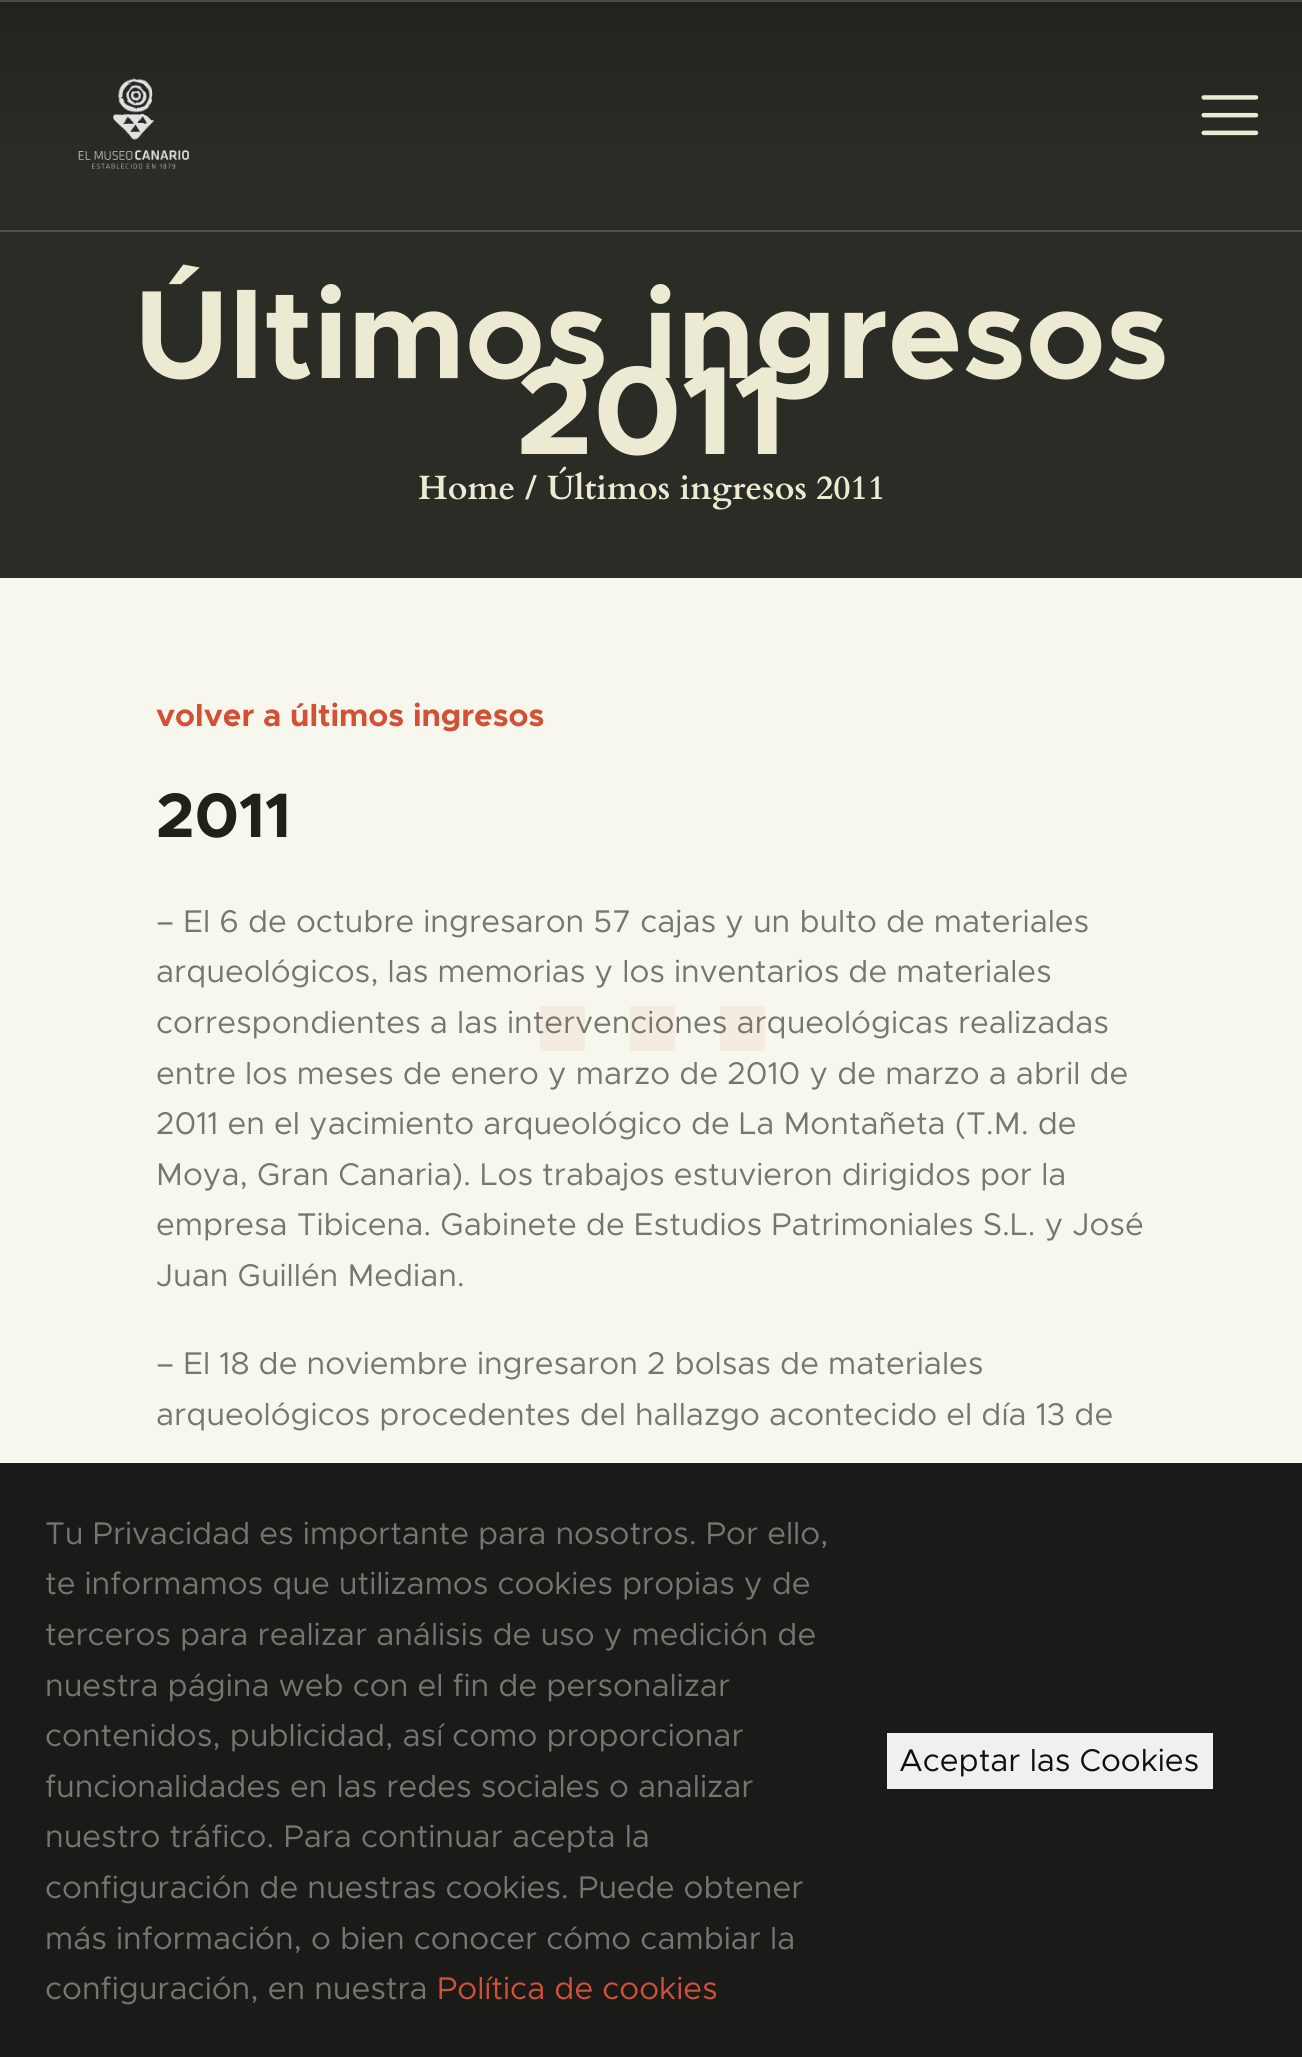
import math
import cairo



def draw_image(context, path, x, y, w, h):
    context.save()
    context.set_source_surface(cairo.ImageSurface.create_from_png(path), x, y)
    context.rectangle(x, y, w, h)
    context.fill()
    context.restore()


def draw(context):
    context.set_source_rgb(247 / 255, 247 / 255, 237 / 255)
    context.paint()
    gradient = cairo.LinearGradient(651, 578, 651, 0)
    gradient.add_color_stop_rgba(0.7, 44 / 255, 44 / 255, 39 / 255, 1)
    gradient.add_color_stop_rgba(1, 35 / 255, 35 / 255, 29 / 255, 1)
    context.set_source(gradient)
    context.rectangle(0, 2, 1302, 576)
    context.fill()
    context.set_source_rgb(75 / 255, 75 / 255, 65 / 255)
    context.rectangle(0, 0, 1302, 2)
    context.fill()
    context.set_source_rgb(82 / 255, 82 / 255, 73 / 255)
    context.rectangle(0, 230, 1302, 2)
    context.fill()
    draw_image(context, "images/1.png", 78, 78, 111, 91)
    draw_image(context, "images/2.png", 1201, 95, 58, 41)
    context.set_source_rgba(207 / 255, 70 / 255, 41 / 255, 0.06)
    context.rectangle(540, 1006, 45, 45)
    context.fill()
    context.rectangle(630, 1006, 45, 45)
    context.fill()
    context.rectangle(720, 1006, 45, 45)
    context.fill()
    context.set_source_rgba(15 / 255, 15 / 255, 15 / 255, 0.95)
    context.rectangle(0, 1463, 1302, 594)
    context.fill()
    context.set_source_rgb(240 / 255, 240 / 255, 240 / 255)
    context.rectangle(887, 1733, 326, 56)
    context.fill()
    context.select_font_face("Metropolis", cairo.FontSlant.NORMAL, cairo.FontWeight.BOLD)
    context.set_font_size(126)
    context.set_source_rgb(236 / 255, 234 / 255, 210 / 255)
    context.move_to(134, 378)
    context.show_text("Últimos ingresos")
    context.move_to(516, 454)
    context.show_text("2011")
    context.select_font_face("Cardo", cairo.FontSlant.NORMAL, cairo.FontWeight.BOLD)
    context.set_font_size(33.75)
    context.move_to(418, 499)
    context.show_text("Home")
    context.move_to(525, 499)
    context.show_text("/")
    context.move_to(547, 499)
    context.show_text("Últimos ingresos 2011")
    context.select_font_face("Metropolis", cairo.FontSlant.NORMAL, cairo.FontWeight.BOLD)
    context.set_font_size(31.5)
    context.set_source_rgb(210 / 255, 81 / 255, 54 / 255)
    context.move_to(156, 726)
    context.show_text("volver a últimos ingresos")
    context.set_font_size(63)
    context.set_source_rgb(33 / 255, 33 / 255, 28 / 255)
    context.move_to(156, 837)
    context.show_text("2011")
    context.select_font_face("Metropolis")
    context.set_font_size(31.5)
    context.set_source_rgb(118 / 255, 118 / 255, 110 / 255)
    context.move_to(156, 932)
    context.show_text("– El 6 de octubre ingresaron 57 cajas y un bulto de materiales")
    context.move_to(156, 982)
    context.show_text("arqueológicos, las memorias y los inventarios de materiales")
    context.move_to(156, 1033)
    context.show_text("correspondientes a las intervenciones arqueológicas realizadas")
    context.move_to(156, 1084)
    context.show_text("entre los meses de enero y marzo de 2010 y de marzo a abril de")
    context.move_to(156, 1134)
    context.show_text("2011 en el yacimiento arqueológico de La Montañeta (T.M. de")
    context.move_to(156, 1185)
    context.show_text("Moya, Gran Canaria). Los trabajos estuvieron dirigidos por la")
    context.move_to(156, 1235)
    context.show_text("empresa Tibicena. Gabinete de Estudios Patrimoniales S.L. y José")
    context.move_to(156, 1286)
    context.show_text("Juan Guillén Median.")
    context.move_to(156, 1374)
    context.show_text("– El 18 de noviembre ingresaron 2 bolsas de materiales")
    context.move_to(156, 1425)
    context.show_text("arqueológicos procedentes del hallazgo acontecido el día 13 de")
    context.move_to(45, 1544)
    context.show_text("Tu Privacidad es importante para nosotros. Por ello,")
    context.move_to(45, 1594)
    context.show_text("te informamos que utilizamos cookies propias y de")
    context.move_to(45, 1645)
    context.show_text("terceros para realizar análisis de uso y medición de")
    context.move_to(45, 1696)
    context.show_text("nuestra página web con el fin de personalizar")
    context.move_to(45, 1746)
    context.show_text("contenidos, publicidad, así como proporcionar")
    context.move_to(45, 1797)
    context.show_text("funcionalidades en las redes sociales o analizar")
    context.move_to(45, 1847)
    context.show_text("nuestro tráfico. Para continuar acepta la")
    context.move_to(45, 1898)
    context.show_text("configuración de nuestras cookies. Puede obtener")
    context.move_to(45, 1949)
    context.show_text("más información, o bien conocer cómo cambiar la")
    context.move_to(45, 1999)
    context.show_text("configuración, en nuestra")
    context.set_source_rgb(210 / 255, 81 / 255, 54 / 255)
    context.move_to(437, 1999)
    context.show_text("Política de cookies")
    context.set_source_rgb(15 / 255, 15 / 255, 15 / 255)
    context.move_to(899, 1771)
    context.show_text("Aceptar las Cookies")


surface = cairo.ImageSurface(cairo.Format.RGB24, 1302, 2057)
context = cairo.Context(surface)
options = cairo.FontOptions()
options.set_hint_metrics(cairo.HintMetrics.OFF)
options.set_hint_style(cairo.HintStyle.NONE)
context.set_font_options(options)
context.set_miter_limit(4)
draw(context)
surface.write_to_png("out.png")
